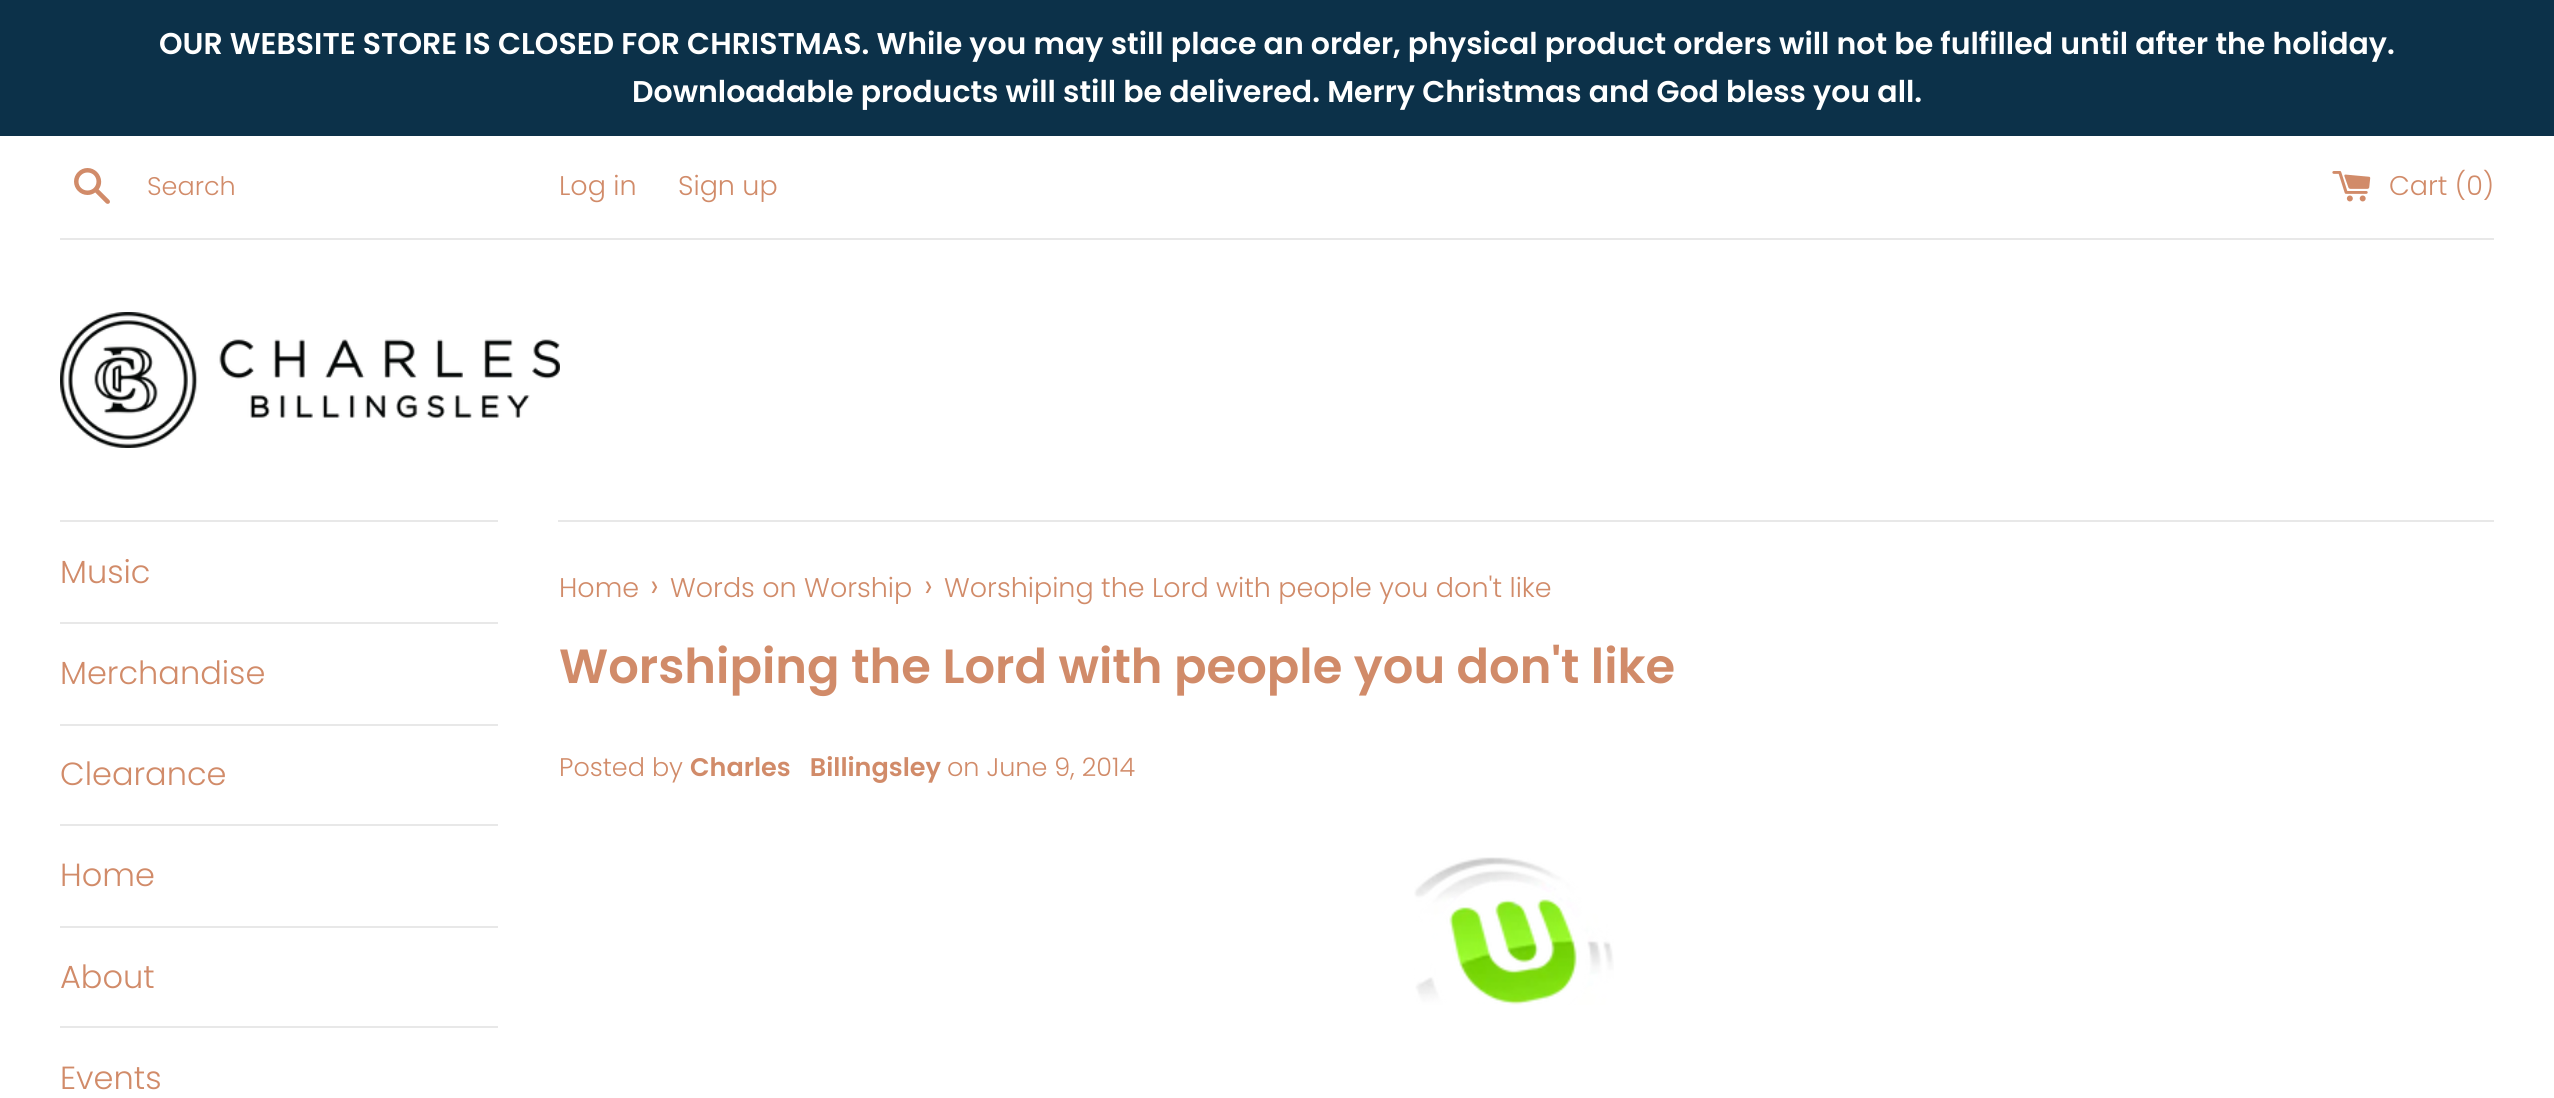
import math
import cairo



def draw_spaced(context, x, y, s, letter, word):
    context.move_to(x, y)
    for ch in s:
        context.show_text(ch)
        context.rel_move_to(letter + word * (ch == ' '), 0)


def draw_image(context, path, x, y, w, h):
    context.save()
    context.set_source_surface(cairo.ImageSurface.create_from_png(path), x, y)
    context.rectangle(x, y, w, h)
    context.fill()
    context.restore()


def draw(context):
    context.set_source_rgb(1, 1, 1)
    context.paint()
    context.set_source_rgb(12 / 255, 49 / 255, 73 / 255)
    context.rectangle(0, 0, 2554, 136)
    context.fill()
    draw_image(context, "images/1.png", 74, 168, 36, 36)
    draw_image(context, "images/2.png", 2332, 171, 39, 31)
    context.set_source_rgb(232 / 255, 232 / 255, 232 / 255)
    context.rectangle(60, 238, 2434, 2)
    context.fill()
    draw_image(context, "images/3.png", 60, 312, 500, 136)
    context.rectangle(60, 520, 438, 2)
    context.fill()
    context.rectangle(60, 622, 438, 2)
    context.fill()
    context.rectangle(60, 724, 438, 2)
    context.fill()
    context.rectangle(60, 824, 438, 2)
    context.fill()
    context.rectangle(60, 926, 438, 2)
    context.fill()
    context.rectangle(60, 1026, 438, 2)
    context.fill()
    context.rectangle(558, 520, 1936, 2)
    context.fill()
    draw_image(context, "images/4.png", 1414, 857, 200, 148)
    context.select_font_face("Poppins SemiBold")
    context.set_font_size(30)
    context.set_source_rgb(1, 1, 1)
    context.move_to(159, 54)
    context.show_text("OUR WEBSITE STORE IS CLOSED FOR CHRISTMAS. While you may still place an order, physical product orders will not be fulfilled until after the holiday.")
    context.move_to(632, 102)
    context.show_text("Downloadable products will still be delivered. Merry Christmas and God bless you all.")
    context.select_font_face("Poppins Light")
    context.set_font_size(25.5)
    context.set_source_rgb(209 / 255, 139 / 255, 105 / 255)
    context.move_to(147, 195)
    context.show_text("Search")
    context.set_font_size(27)
    context.move_to(559, 195)
    context.show_text("Log in")
    context.move_to(678, 195)
    context.show_text("Sign up")
    context.move_to(2389, 195)
    context.show_text("Cart (0)")
    context.set_font_size(32)
    context.move_to(60, 583)
    context.show_text("Music")
    context.move_to(60, 684)
    context.show_text("Merchandise")
    context.move_to(60, 785)
    context.show_text("Clearance")
    context.move_to(60, 886)
    context.show_text("Home")
    context.move_to(60, 988)
    context.show_text("About")
    context.move_to(60, 1089)
    context.show_text("Events")
    context.set_font_size(27)
    context.move_to(559, 597)
    context.show_text("Home")
    context.set_font_size(33)
    context.move_to(650, 597)
    context.show_text("›")
    context.set_font_size(27)
    context.move_to(670, 597)
    context.show_text("Words on Worship")
    context.set_font_size(33)
    context.move_to(924, 597)
    context.show_text("›")
    context.set_font_size(27)
    context.move_to(944, 597)
    context.show_text("Worshiping the Lord with people you don't like")
    context.select_font_face("Poppins SemiBold")
    context.set_font_size(48)
    context.move_to(559, 683)
    context.show_text("Worshiping the Lord with people you don't like")
    context.select_font_face("Poppins Light")
    context.set_font_size(25.5)
    context.move_to(559, 776)
    context.show_text("Posted by")
    context.select_font_face("Poppins SemiBold")
    draw_spaced(context, 690, 776, "Charles Billingsley", 0, 13)
    context.select_font_face("Poppins Light")
    context.move_to(947, 776)
    context.show_text("on June 9, 2014")


surface = cairo.ImageSurface(cairo.Format.RGB24, 2554, 1098)
context = cairo.Context(surface)
options = cairo.FontOptions()
options.set_hint_metrics(cairo.HintMetrics.OFF)
options.set_hint_style(cairo.HintStyle.NONE)
context.set_font_options(options)
context.set_miter_limit(4)
draw(context)
surface.write_to_png("out.png")
